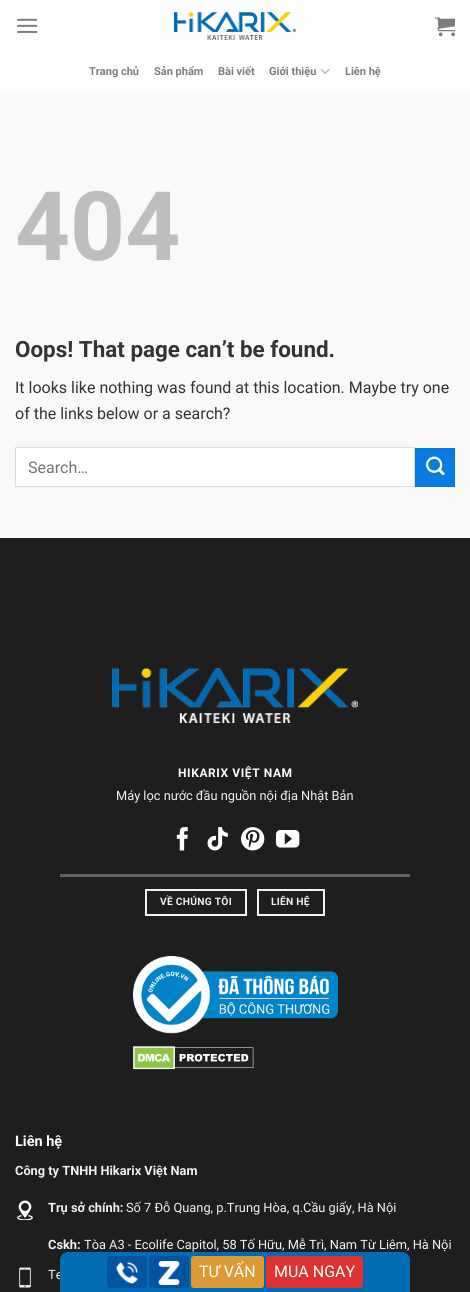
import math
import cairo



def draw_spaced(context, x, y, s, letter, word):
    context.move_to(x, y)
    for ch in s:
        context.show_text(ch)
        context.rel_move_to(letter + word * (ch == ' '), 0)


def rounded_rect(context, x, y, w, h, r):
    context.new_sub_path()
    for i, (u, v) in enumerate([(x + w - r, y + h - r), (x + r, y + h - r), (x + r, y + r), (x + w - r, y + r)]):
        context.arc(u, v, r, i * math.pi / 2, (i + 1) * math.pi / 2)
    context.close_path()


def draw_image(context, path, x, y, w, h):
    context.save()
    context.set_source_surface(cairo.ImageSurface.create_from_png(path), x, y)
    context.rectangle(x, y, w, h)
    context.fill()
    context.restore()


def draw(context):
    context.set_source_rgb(249 / 255, 249 / 255, 249 / 255)
    context.paint()
    context.set_source_rgb(254 / 255, 254 / 255, 254 / 255)
    context.rectangle(0, 0, 470, 91)
    context.fill()
    draw_image(context, "images/1.png", 17, 18, 21, 15)
    draw_image(context, "images/2.png", 174, 12, 122, 28)
    draw_image(context, "images/3.png", 435, 17, 20, 20)
    draw_image(context, "images/4.png", 320, 68, 10, 6)
    context.set_source_rgb(1, 1, 1)
    context.rectangle(15.5, 447.5, 399, 39)
    context.fill_preserve()
    context.set_source_rgb(221 / 255, 221 / 255, 221 / 255)
    context.set_line_width(1)
    context.stroke()
    context.set_source_rgb(9 / 255, 124 / 255, 225 / 255)
    context.rectangle(415.5, 448.5, 39, 38)
    context.fill_preserve()
    context.set_source_rgb(9 / 255, 118 / 255, 214 / 255)
    context.stroke()
    draw_image(context, "images/5.png", 426, 456, 19, 20)
    context.set_source_rgb(30 / 255, 30 / 255, 30 / 255)
    context.rectangle(0, 538, 470, 754)
    context.fill()
    draw_image(context, "images/6.png", 112, 668, 246, 55)
    draw_image(context, "images/7.png", 176, 827, 12, 24)
    draw_image(context, "images/8.png", 207, 827, 21, 24)
    draw_image(context, "images/9.png", 241, 827, 24, 24)
    draw_image(context, "images/10.png", 276, 830, 24, 18)
    context.set_source_rgb(98 / 255, 98 / 255, 98 / 255)
    context.rectangle(60, 874, 350, 3)
    context.fill()
    context.rectangle(146, 890, 100, 25)
    context.set_source_rgb(241 / 255, 241 / 255, 241 / 255)
    context.set_line_width(2)
    context.stroke()
    context.rectangle(258, 890, 66, 25)
    context.stroke()
    draw_image(context, "images/11.png", 133, 956, 205, 78)
    draw_image(context, "images/12.png", 133, 1046, 121, 24)
    draw_image(context, "images/13.png", 17, 1200, 16, 20)
    draw_image(context, "images/14.png", 19, 1267, 12, 21)
    context.select_font_face("Roboto", cairo.FontSlant.NORMAL, cairo.FontWeight.BOLD)
    context.set_font_size(11)
    context.set_source_rgb(125 / 255, 125 / 255, 125 / 255)
    context.move_to(89, 75)
    context.show_text("Trang chủ")
    context.move_to(154, 75)
    context.show_text("Sản phẩm")
    context.move_to(218, 75)
    context.show_text("Bài viết")
    context.move_to(269, 75)
    context.show_text("Giới thiệu")
    context.move_to(345, 75)
    context.show_text("Liên hệ")
    context.set_font_size(96)
    context.set_source_rgb(190 / 255, 190 / 255, 190 / 255)
    context.move_to(15, 260)
    context.show_text("404")
    context.set_font_size(22.4)
    context.set_source_rgb(51 / 255, 51 / 255, 51 / 255)
    context.move_to(15, 357)
    context.show_text("Oops! That page can’t be found.")
    context.select_font_face("Roboto")
    context.set_font_size(16)
    context.move_to(15, 393)
    context.show_text("It looks like nothing was found at this location. Maybe try one")
    context.move_to(15, 419)
    context.show_text("of the links below or a search?")
    context.set_source_rgb(117 / 255, 117 / 255, 117 / 255)
    context.move_to(28, 473)
    context.show_text("Search…")
    context.select_font_face("Roboto", cairo.FontSlant.NORMAL, cairo.FontWeight.BOLD)
    context.set_font_size(12)
    context.set_source_rgb(1, 1, 1)
    draw_spaced(context, 178, 777, "HIKARIX VIỆT NAM", 0.6, 0)
    context.select_font_face("Roboto")
    context.set_font_size(12.8)
    context.set_source_rgb(241 / 255, 241 / 255, 241 / 255)
    context.move_to(116, 800)
    context.show_text("Máy lọc nước đầu nguồn nội địa Nhật Bản")
    context.select_font_face("Roboto", cairo.FontSlant.NORMAL, cairo.FontWeight.BOLD)
    context.set_font_size(10.25)
    draw_spaced(context, 160, 905, "VỀ CHÚNG TÔI", 0.25, 0)
    draw_spaced(context, 271, 905, "LIÊN HỆ", 0.25, 0)
    context.set_font_size(14.5)
    context.set_source_rgb(1, 1, 1)
    context.move_to(15, 1146)
    context.show_text("Liên hệ")
    context.set_font_size(12.8)
    context.set_source_rgb(241 / 255, 241 / 255, 241 / 255)
    context.move_to(15, 1175)
    context.show_text("Công ty TNHH Hikarix Việt Nam")
    context.move_to(48, 1212)
    context.show_text("Trụ sở chính:")
    context.select_font_face("Roboto")
    context.move_to(126, 1212)
    context.show_text("Số 7 Đỗ Quang, p.Trung Hòa, q.Cầu giấy, Hà Nội")
    context.select_font_face("Roboto", cairo.FontSlant.NORMAL, cairo.FontWeight.BOLD)
    context.move_to(48, 1249)
    context.show_text("Cskh:")
    context.select_font_face("Roboto")
    context.move_to(84, 1249)
    context.show_text("Tòa A3 - Ecolife Capitol, 58 Tố Hữu, Mễ Trì, Nam Từ Liêm, Hà Nội")
    context.move_to(48, 1279)
    context.show_text("Te")
    context.set_source_rgb(0, 108 / 255, 182 / 255)
    context.new_path()
    context.move_to(68, 1252)
    context.line_to(402, 1252)
    context.curve_to(406.5, 1252, 410, 1255.5, 410, 1260)
    context.line_to(410, 1292)
    context.line_to(60, 1292)
    context.line_to(60, 1260)
    context.curve_to(60, 1255.5, 63.5, 1252, 68, 1252)
    context.close_path()
    context.fill()
    context.set_source_rgb(3 / 255, 84 / 255, 160 / 255)
    rounded_rect(context, 107, 1256, 40, 32, 3)
    context.fill()
    draw_image(context, "images/15.png", 116, 1262, 22, 22)
    rounded_rect(context, 149, 1256, 40, 32, 3)
    context.fill()
    draw_image(context, "images/16.png", 158, 1261, 22, 24)
    context.set_source_rgb(221 / 255, 153 / 255, 51 / 255)
    rounded_rect(context, 191, 1256, 73, 32, 3)
    context.fill()
    context.set_font_size(16)
    context.set_source_rgb(1, 1, 1)
    context.move_to(199, 1277)
    context.show_text("TƯ VẤN")
    context.set_source_rgb(221 / 255, 51 / 255, 51 / 255)
    rounded_rect(context, 266, 1256, 97, 32, 3)
    context.fill()
    context.set_source_rgb(1, 1, 1)
    context.move_to(274, 1277)
    context.show_text("MUA NGAY")


surface = cairo.ImageSurface(cairo.Format.RGB24, 470, 1292)
context = cairo.Context(surface)
options = cairo.FontOptions()
options.set_hint_metrics(cairo.HintMetrics.OFF)
options.set_hint_style(cairo.HintStyle.NONE)
context.set_font_options(options)
context.set_miter_limit(4)
draw(context)
surface.write_to_png("out.png")
